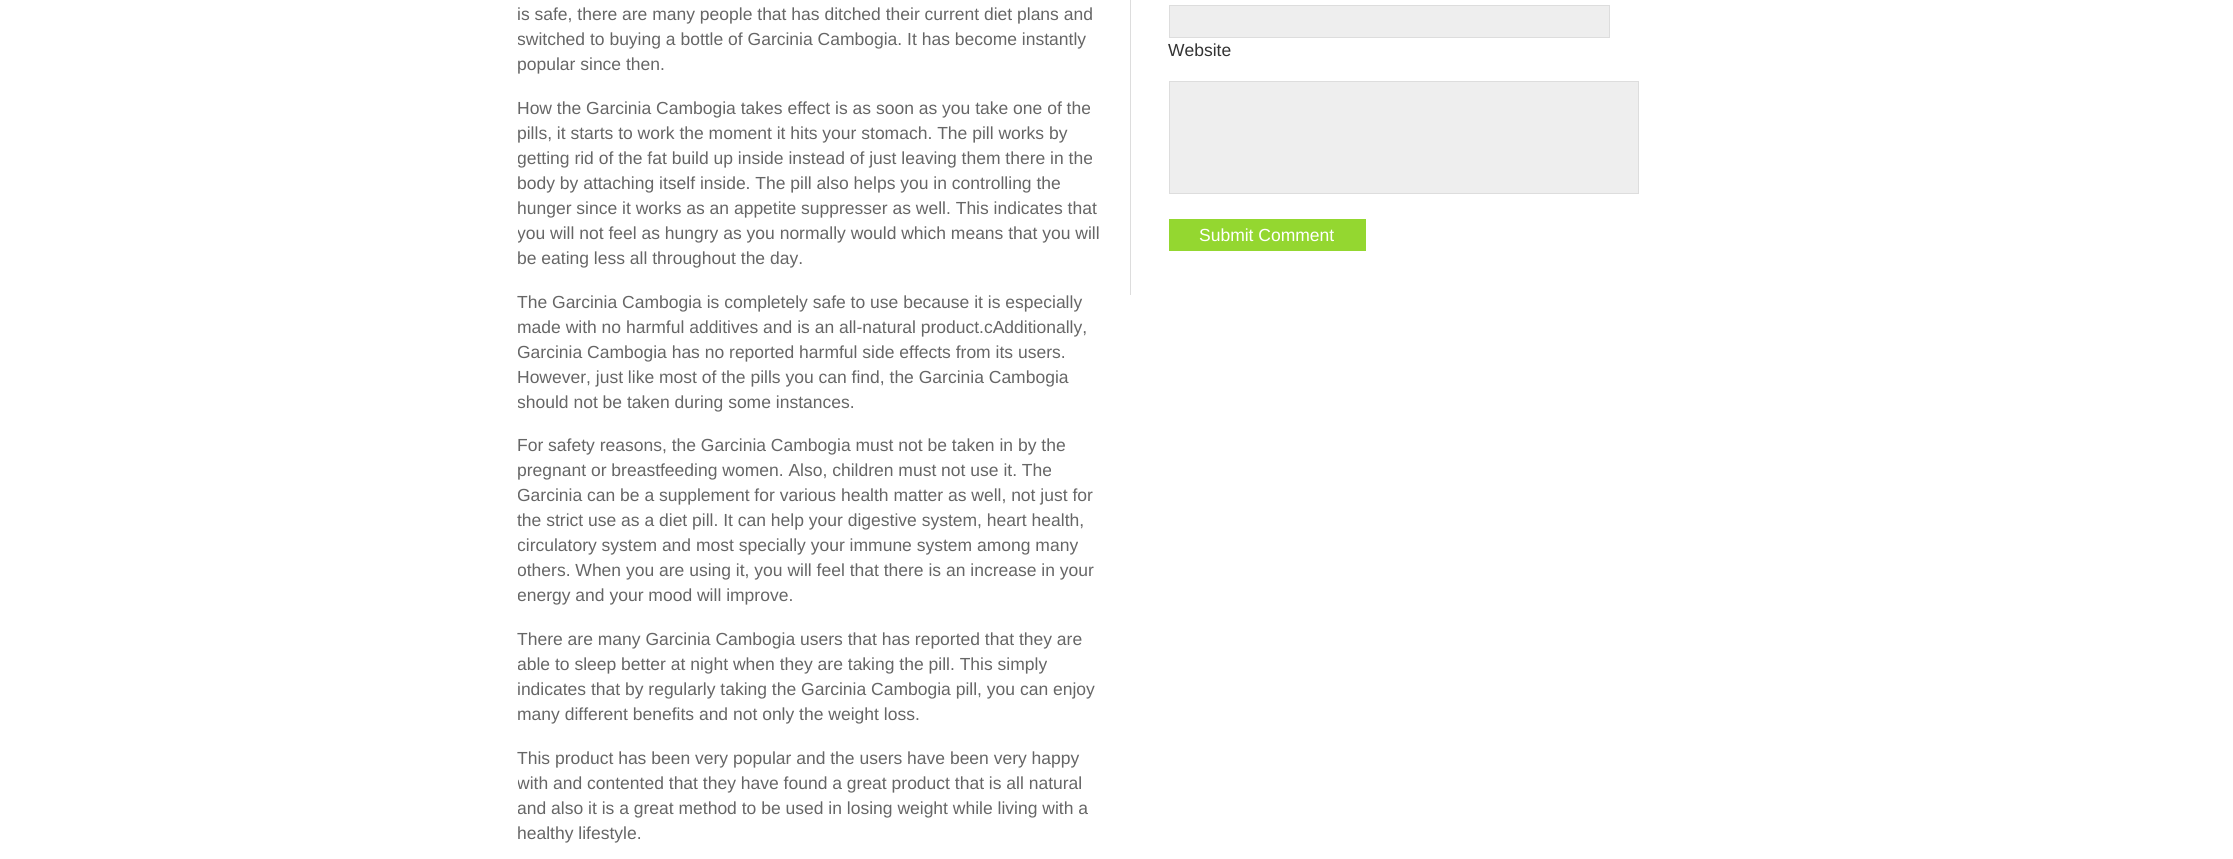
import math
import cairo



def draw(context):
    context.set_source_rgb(1, 1, 1)
    context.paint()
    context.set_source_rgb(221 / 255, 221 / 255, 221 / 255)
    context.rectangle(1130, 0, 1, 295)
    context.fill()
    context.set_source_rgb(238 / 255, 238 / 255, 238 / 255)
    context.rectangle(1169.5, 5.5, 440, 32)
    context.fill_preserve()
    context.set_source_rgb(221 / 255, 221 / 255, 221 / 255)
    context.set_line_width(1)
    context.stroke()
    context.set_source_rgb(238 / 255, 238 / 255, 238 / 255)
    context.rectangle(1169.5, 81.5, 469, 112)
    context.fill_preserve()
    context.set_source_rgb(221 / 255, 221 / 255, 221 / 255)
    context.stroke()
    context.set_source_rgb(148 / 255, 215 / 255, 48 / 255)
    context.rectangle(1169, 219, 197, 32)
    context.fill()
    context.select_font_face("Liberation Sans")
    context.set_font_size(17.5)
    context.set_source_rgb(102 / 255, 102 / 255, 102 / 255)
    context.move_to(517, 20)
    context.show_text("is safe, there are many people that has ditched their current diet plans and")
    context.save()
    context.rectangle(518, 0, 587, 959)
    context.clip()
    context.move_to(517, 45)
    context.show_text("switched to buying a bottle of Garcinia Cambogia. It has become instantly")
    context.restore()
    context.move_to(517, 70)
    context.show_text("popular since then.")
    context.move_to(517, 114)
    context.show_text("How the Garcinia Cambogia takes effect is as soon as you take one of the")
    context.move_to(517, 139)
    context.show_text("pills, it starts to work the moment it hits your stomach. The pill works by")
    context.save()
    context.rectangle(518, 0, 587, 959)
    context.clip()
    context.move_to(517, 164)
    context.show_text("getting rid of the fat build up inside instead of just leaving them there in the")
    context.restore()
    context.move_to(517, 189)
    context.show_text("body by attaching itself inside. The pill also helps you in controlling the")
    context.move_to(517, 214)
    context.show_text("hunger since it works as an appetite suppresser as well. This indicates that")
    context.save()
    context.rectangle(518, 0, 587, 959)
    context.clip()
    context.move_to(517, 239)
    context.show_text("you will not feel as hungry as you normally would which means that you will")
    context.restore()
    context.move_to(517, 264)
    context.show_text("be eating less all throughout the day.")
    context.move_to(517, 308)
    context.show_text("The Garcinia Cambogia is completely safe to use because it is especially")
    context.move_to(517, 333)
    context.show_text("made with no harmful additives and is an all-natural product.cAdditionally,")
    context.save()
    context.rectangle(518, 0, 587, 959)
    context.clip()
    context.move_to(517, 358)
    context.show_text("Garcinia Cambogia has no reported harmful side effects from its users.")
    context.restore()
    context.move_to(517, 383)
    context.show_text("However, just like most of the pills you can find, the Garcinia Cambogia")
    context.save()
    context.rectangle(518, 0, 587, 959)
    context.clip()
    context.move_to(517, 408)
    context.show_text("should not be taken during some instances.")
    context.restore()
    context.move_to(517, 451)
    context.show_text("For safety reasons, the Garcinia Cambogia must not be taken in by the")
    context.move_to(517, 476)
    context.show_text("pregnant or breastfeeding women. Also, children must not use it. The")
    context.save()
    context.rectangle(518, 0, 587, 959)
    context.clip()
    context.move_to(517, 501)
    context.show_text("Garcinia can be a supplement for various health matter as well, not just for")
    context.restore()
    context.move_to(517, 526)
    context.show_text("the strict use as a diet pill. It can help your digestive system, heart health,")
    context.save()
    context.rectangle(518, 0, 587, 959)
    context.clip()
    context.move_to(517, 551)
    context.show_text("circulatory system and most specially your immune system among many")
    context.move_to(517, 576)
    context.show_text("others. When you are using it, you will feel that there is an increase in your")
    context.move_to(517, 601)
    context.show_text("energy and your mood will improve.")
    context.restore()
    context.move_to(517, 645)
    context.show_text("There are many Garcinia Cambogia users that has reported that they are")
    context.save()
    context.rectangle(518, 0, 587, 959)
    context.clip()
    context.move_to(517, 670)
    context.show_text("able to sleep better at night when they are taking the pill. This simply")
    context.restore()
    context.move_to(517, 695)
    context.show_text("indicates that by regularly taking the Garcinia Cambogia pill, you can enjoy")
    context.move_to(517, 720)
    context.show_text("many different benefits and not only the weight loss.")
    context.move_to(517, 764)
    context.show_text("This product has been very popular and the users have been very happy")
    context.save()
    context.rectangle(518, 0, 587, 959)
    context.clip()
    context.move_to(517, 789)
    context.show_text("with and contented that they have found a great product that is all natural")
    context.move_to(517, 814)
    context.show_text("and also it is a great method to be used in losing weight while living with a")
    context.restore()
    context.move_to(517, 839)
    context.show_text("healthy lifestyle.")
    context.set_source_rgb(51 / 255, 51 / 255, 51 / 255)
    context.move_to(1168, 56)
    context.show_text("Website")
    context.set_source_rgb(1, 1, 1)
    context.move_to(1199, 241)
    context.show_text("Submit Comment")


surface = cairo.ImageSurface(cairo.Format.RGB24, 2233, 859)
context = cairo.Context(surface)
options = cairo.FontOptions()
options.set_hint_metrics(cairo.HintMetrics.OFF)
options.set_hint_style(cairo.HintStyle.NONE)
context.set_font_options(options)
context.set_miter_limit(4)
draw(context)
surface.write_to_png("out.png")
